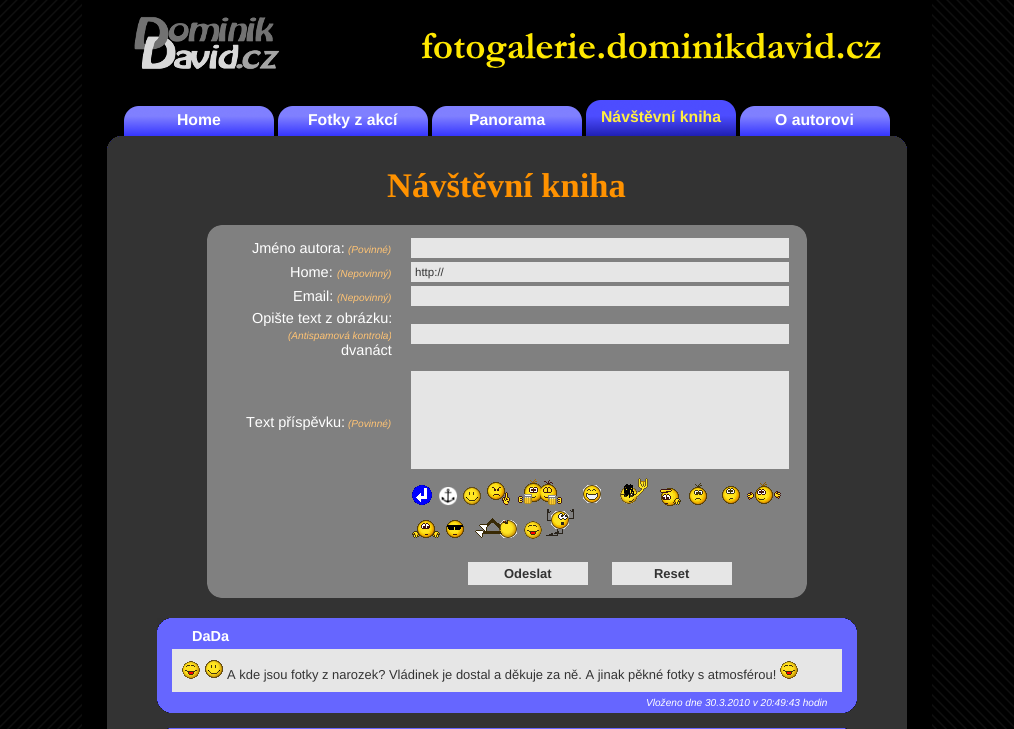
import math
import cairo



def draw_image(context, path, x, y, w, h):
    context.save()
    context.set_source_surface(cairo.ImageSurface.create_from_png(path), x, y)
    context.rectangle(x, y, w, h)
    context.fill()
    context.restore()


def draw(context):
    context.set_source_rgb(1, 1, 1)
    context.paint()
    draw_image(context, "images/1.png", 0, 0, 1014, 729)
    context.set_source_rgb(0, 0, 0)
    context.rectangle(82, 0, 850, 729)
    context.fill()
    draw_image(context, "images/2.png", 134, 16, 146, 54)
    draw_image(context, "images/3.png", 422, 32, 459, 36)
    draw_image(context, "images/4.png", 124, 106, 150, 30)
    draw_image(context, "images/4.png", 278, 106, 150, 30)
    draw_image(context, "images/4.png", 432, 106, 150, 30)
    draw_image(context, "images/5.png", 586, 100, 150, 36)
    draw_image(context, "images/4.png", 740, 106, 150, 30)
    context.set_source_rgb(51 / 255, 51 / 255, 51 / 255)
    context.rectangle(107, 148, 800, 581)
    context.fill()
    draw_image(context, "images/6.png", 107, 136, 800, 12)
    context.set_source_rgb(128 / 255, 128 / 255, 128 / 255)
    context.rectangle(207, 239, 600, 345)
    context.fill()
    draw_image(context, "images/7.png", 207, 584, 600, 14)
    draw_image(context, "images/8.png", 207, 225, 600, 14)
    context.set_source_rgb(230 / 255, 230 / 255, 230 / 255)
    context.rectangle(411, 238, 378, 20)
    context.fill()
    context.rectangle(411, 262, 378, 20)
    context.fill()
    context.rectangle(411, 286, 378, 20)
    context.fill()
    context.rectangle(411, 324, 378, 20)
    context.fill()
    context.set_source_rgb(229 / 255, 229 / 255, 229 / 255)
    context.rectangle(411, 371, 378, 98)
    context.fill()
    draw_image(context, "images/9.png", 412, 485, 20, 20)
    draw_image(context, "images/10.png", 439, 487, 19, 19)
    draw_image(context, "images/11.png", 463, 487, 18, 18)
    draw_image(context, "images/12.png", 487, 482, 23, 23)
    draw_image(context, "images/13.png", 518, 479, 44, 26)
    draw_image(context, "images/14.png", 583, 485, 18, 18)
    draw_image(context, "images/15.png", 620, 478, 28, 26)
    draw_image(context, "images/16.png", 660, 488, 21, 18)
    draw_image(context, "images/17.png", 689, 483, 18, 22)
    draw_image(context, "images/18.png", 722, 486, 18, 18)
    draw_image(context, "images/19.png", 747, 482, 34, 22)
    draw_image(context, "images/20.png", 412, 520, 28, 18)
    draw_image(context, "images/21.png", 446, 520, 18, 18)
    draw_image(context, "images/22.png", 475, 518, 42, 20)
    draw_image(context, "images/23.png", 524, 521, 18, 18)
    draw_image(context, "images/24.png", 546, 509, 28, 27)
    context.set_source_rgb(230 / 255, 230 / 255, 230 / 255)
    context.rectangle(468, 562, 120, 23)
    context.fill()
    context.rectangle(612, 562, 120, 23)
    context.fill()
    context.set_source_rgb(102 / 255, 102 / 255, 1)
    context.rectangle(157, 630, 700, 71)
    context.fill()
    draw_image(context, "images/25.png", 157, 701, 700, 12)
    draw_image(context, "images/26.png", 157, 618, 700, 12)
    context.set_source_rgb(230 / 255, 230 / 255, 230 / 255)
    context.rectangle(172, 649, 670, 43)
    context.fill()
    draw_image(context, "images/27.png", 182, 661, 18, 18)
    draw_image(context, "images/28.png", 205, 660, 18, 18)
    draw_image(context, "images/27.png", 780, 661, 18, 18)
    draw_image(context, "images/29.png", 157, 728, 700, 1)
    context.select_font_face("Liberation Sans", cairo.FontSlant.NORMAL, cairo.FontWeight.BOLD)
    context.set_font_size(15.75)
    context.set_source_rgb(1, 1, 1)
    context.move_to(177, 125)
    context.show_text("Home")
    context.move_to(308, 125)
    context.show_text("Fotky z akcí")
    context.move_to(469, 125)
    context.show_text("Panorama")
    context.set_source_rgb(1, 238 / 255, 64 / 255)
    context.move_to(601, 122)
    context.show_text("Návštěvní kniha")
    context.set_source_rgb(1, 1, 1)
    context.move_to(775, 125)
    context.show_text("O autorovi")
    context.select_font_face("Liberation Serif", cairo.FontSlant.NORMAL, cairo.FontWeight.BOLD)
    context.set_font_size(34.5)
    context.set_source_rgb(1, 146 / 255, 0)
    context.move_to(387, 197)
    context.show_text("Návštěvní kniha")
    context.select_font_face("Liberation Sans")
    context.set_font_size(14.5)
    context.set_source_rgb(1, 1, 1)
    context.move_to(252, 253)
    context.show_text("Jméno autora:")
    context.select_font_face("Liberation Sans", cairo.FontSlant.ITALIC)
    context.set_font_size(10.1)
    context.set_source_rgb(1, 195 / 255, 115 / 255)
    context.move_to(348, 253)
    context.show_text("(Povinné)")
    context.select_font_face("Liberation Sans")
    context.set_font_size(14.5)
    context.set_source_rgb(1, 1, 1)
    context.move_to(290, 277)
    context.show_text("Home:")
    context.select_font_face("Liberation Sans", cairo.FontSlant.ITALIC)
    context.set_font_size(10.1)
    context.set_source_rgb(1, 195 / 255, 115 / 255)
    context.move_to(337, 277)
    context.show_text("(Nepovinný)")
    context.select_font_face("Liberation Sans")
    context.set_font_size(11.5)
    context.set_source_rgb(51 / 255, 51 / 255, 51 / 255)
    context.move_to(415, 276)
    context.show_text("http://")
    context.set_font_size(14.5)
    context.set_source_rgb(1, 1, 1)
    context.move_to(293, 301)
    context.show_text("Email:")
    context.select_font_face("Liberation Sans", cairo.FontSlant.ITALIC)
    context.set_font_size(10.1)
    context.set_source_rgb(1, 195 / 255, 115 / 255)
    context.move_to(337, 301)
    context.show_text("(Nepovinný)")
    context.select_font_face("Liberation Sans")
    context.set_font_size(14.5)
    context.set_source_rgb(1, 1, 1)
    context.move_to(252, 323)
    context.show_text("Opište text z obrázku:")
    context.select_font_face("Liberation Sans", cairo.FontSlant.ITALIC)
    context.set_font_size(10.1)
    context.set_source_rgb(1, 195 / 255, 115 / 255)
    context.move_to(288, 339)
    context.show_text("(Antispamová kontrola)")
    context.select_font_face("Liberation Sans")
    context.set_font_size(14.5)
    context.set_source_rgb(1, 1, 1)
    context.move_to(341, 355)
    context.show_text("dvanáct")
    context.move_to(246, 427)
    context.show_text("Text příspěvku:")
    context.select_font_face("Liberation Sans", cairo.FontSlant.ITALIC)
    context.set_font_size(10.1)
    context.set_source_rgb(1, 195 / 255, 115 / 255)
    context.move_to(348, 427)
    context.show_text("(Povinné)")
    context.select_font_face("Liberation Sans", cairo.FontSlant.NORMAL, cairo.FontWeight.BOLD)
    context.set_font_size(12.95)
    context.set_source_rgb(51 / 255, 51 / 255, 51 / 255)
    context.move_to(504, 578)
    context.show_text("Odeslat")
    context.move_to(654, 578)
    context.show_text("Reset")
    context.set_font_size(14.5)
    context.set_source_rgb(1, 1, 1)
    context.move_to(192, 641)
    context.show_text("DaDa")
    context.select_font_face("Liberation Sans")
    context.set_font_size(12.95)
    context.set_source_rgb(51 / 255, 51 / 255, 51 / 255)
    context.move_to(227, 679)
    context.show_text("A kde jsou fotky z narozek? Vládinek je dostal a děkuje za ně. A jinak pěkné fotky s atmosférou!")
    context.select_font_face("Liberation Sans", cairo.FontSlant.ITALIC)
    context.set_font_size(10.1)
    context.set_source_rgb(1, 1, 1)
    context.move_to(646, 706)
    context.show_text("Vloženo dne 30.3.2010 v 20:49:43 hodin")


surface = cairo.ImageSurface(cairo.Format.RGB24, 1014, 729)
context = cairo.Context(surface)
options = cairo.FontOptions()
options.set_hint_metrics(cairo.HintMetrics.OFF)
options.set_hint_style(cairo.HintStyle.NONE)
context.set_font_options(options)
context.set_miter_limit(4)
draw(context)
surface.write_to_png("out.png")
